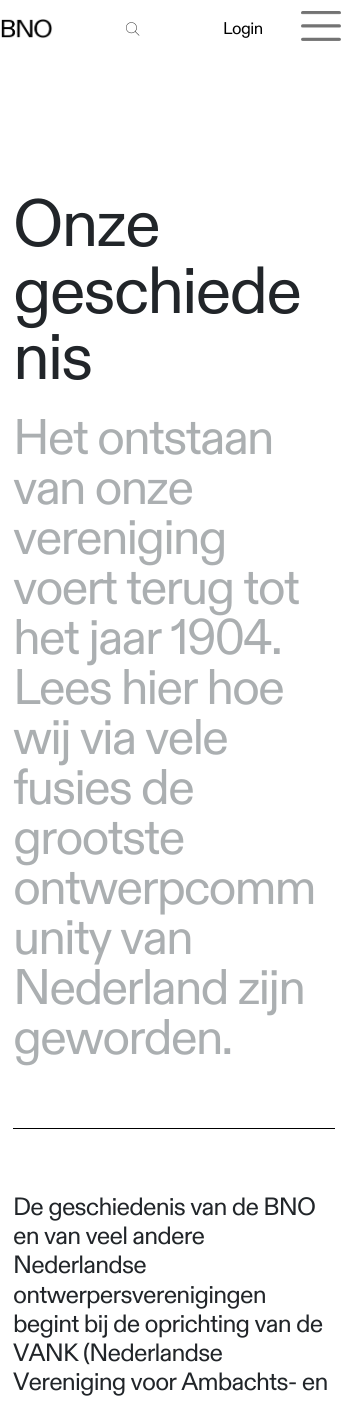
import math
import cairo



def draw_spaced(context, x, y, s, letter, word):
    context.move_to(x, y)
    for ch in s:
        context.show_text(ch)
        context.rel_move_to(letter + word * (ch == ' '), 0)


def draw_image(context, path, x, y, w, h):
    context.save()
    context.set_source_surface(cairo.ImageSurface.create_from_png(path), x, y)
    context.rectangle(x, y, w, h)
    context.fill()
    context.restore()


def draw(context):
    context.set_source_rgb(1, 1, 1)
    context.paint()
    draw_image(context, "images/1.png", 1, 19, 52, 20)
    draw_image(context, "images/2.png", 126, 22, 14, 14)
    draw_image(context, "images/3.png", 301, 11, 40, 30)
    context.new_path()
    context.move_to(302.5, 15.5)
    context.line_to(339.5, 15.5)
    context.move_to(302.5, 29)
    context.line_to(339.5, 29)
    context.move_to(302.5, 42.5)
    context.line_to(339.5, 42.5)
    context.set_source_rgba(1, 1, 1, 0.55)
    context.set_line_width(3.3)
    context.set_line_cap(cairo.LineCap.ROUND)
    context.stroke()
    context.set_source_rgb(0, 0, 0)
    context.rectangle(13, 1128, 322, 1)
    context.fill()
    context.select_font_face("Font")
    context.set_font_size(17)
    draw_spaced(context, 223, 34, "Login", -0.5, 0)
    context.set_font_size(66.5)
    context.set_source_rgb(33 / 255, 37 / 255, 41 / 255)
    draw_spaced(context, 13, 246, "Onze", -2, 0)
    draw_spaced(context, 13, 313, "geschiede", -2, 0)
    draw_spaced(context, 13, 379, "nis", -2, 0)
    context.set_font_size(50)
    context.set_source_rgb(171 / 255, 175 / 255, 177 / 255)
    draw_spaced(context, 13, 454, "Het ontstaan", -2, 0)
    draw_spaced(context, 13, 504, "van onze", -2, 0)
    draw_spaced(context, 13, 554, "vereniging", -2, 0)
    draw_spaced(context, 13, 604, "voert terug tot", -2, 0)
    draw_spaced(context, 13, 654, "het jaar 1904.", -2, 0)
    draw_spaced(context, 13, 704, "Lees hier hoe", -2, 0)
    draw_spaced(context, 13, 754, "wij via vele", -2, 0)
    draw_spaced(context, 13, 804, "fusies de", -2, 0)
    draw_spaced(context, 13, 854, "grootste", -2, 0)
    draw_spaced(context, 13, 904, "ontwerpcomm", -2, 0)
    draw_spaced(context, 13, 954, "unity van", -2, 0)
    draw_spaced(context, 13, 1004, "Nederland zijn", -2, 0)
    draw_spaced(context, 13, 1054, "geworden.", -2, 0)
    context.set_font_size(25)
    context.set_source_rgb(33 / 255, 37 / 255, 41 / 255)
    draw_spaced(context, 13, 1215, "De geschiedenis van de BNO", -0.8, 0)
    draw_spaced(context, 13, 1244, "en van veel andere", -0.8, 0)
    draw_spaced(context, 13, 1273, "Nederlandse", -0.8, 0)
    draw_spaced(context, 13, 1303, "ontwerpersverenigingen", -0.8, 0)
    draw_spaced(context, 13, 1332, "begint bij de oprichting van de", -0.8, 0)
    draw_spaced(context, 13, 1361, "VANK (Nederlandse", -0.8, 0)
    draw_spaced(context, 13, 1390, "Vereniging voor Ambachts- en", -0.8, 0)


surface = cairo.ImageSurface(cairo.Format.RGB24, 347, 1406)
context = cairo.Context(surface)
options = cairo.FontOptions()
options.set_hint_metrics(cairo.HintMetrics.OFF)
options.set_hint_style(cairo.HintStyle.NONE)
context.set_font_options(options)
context.set_miter_limit(4)
draw(context)
surface.write_to_png("out.png")
